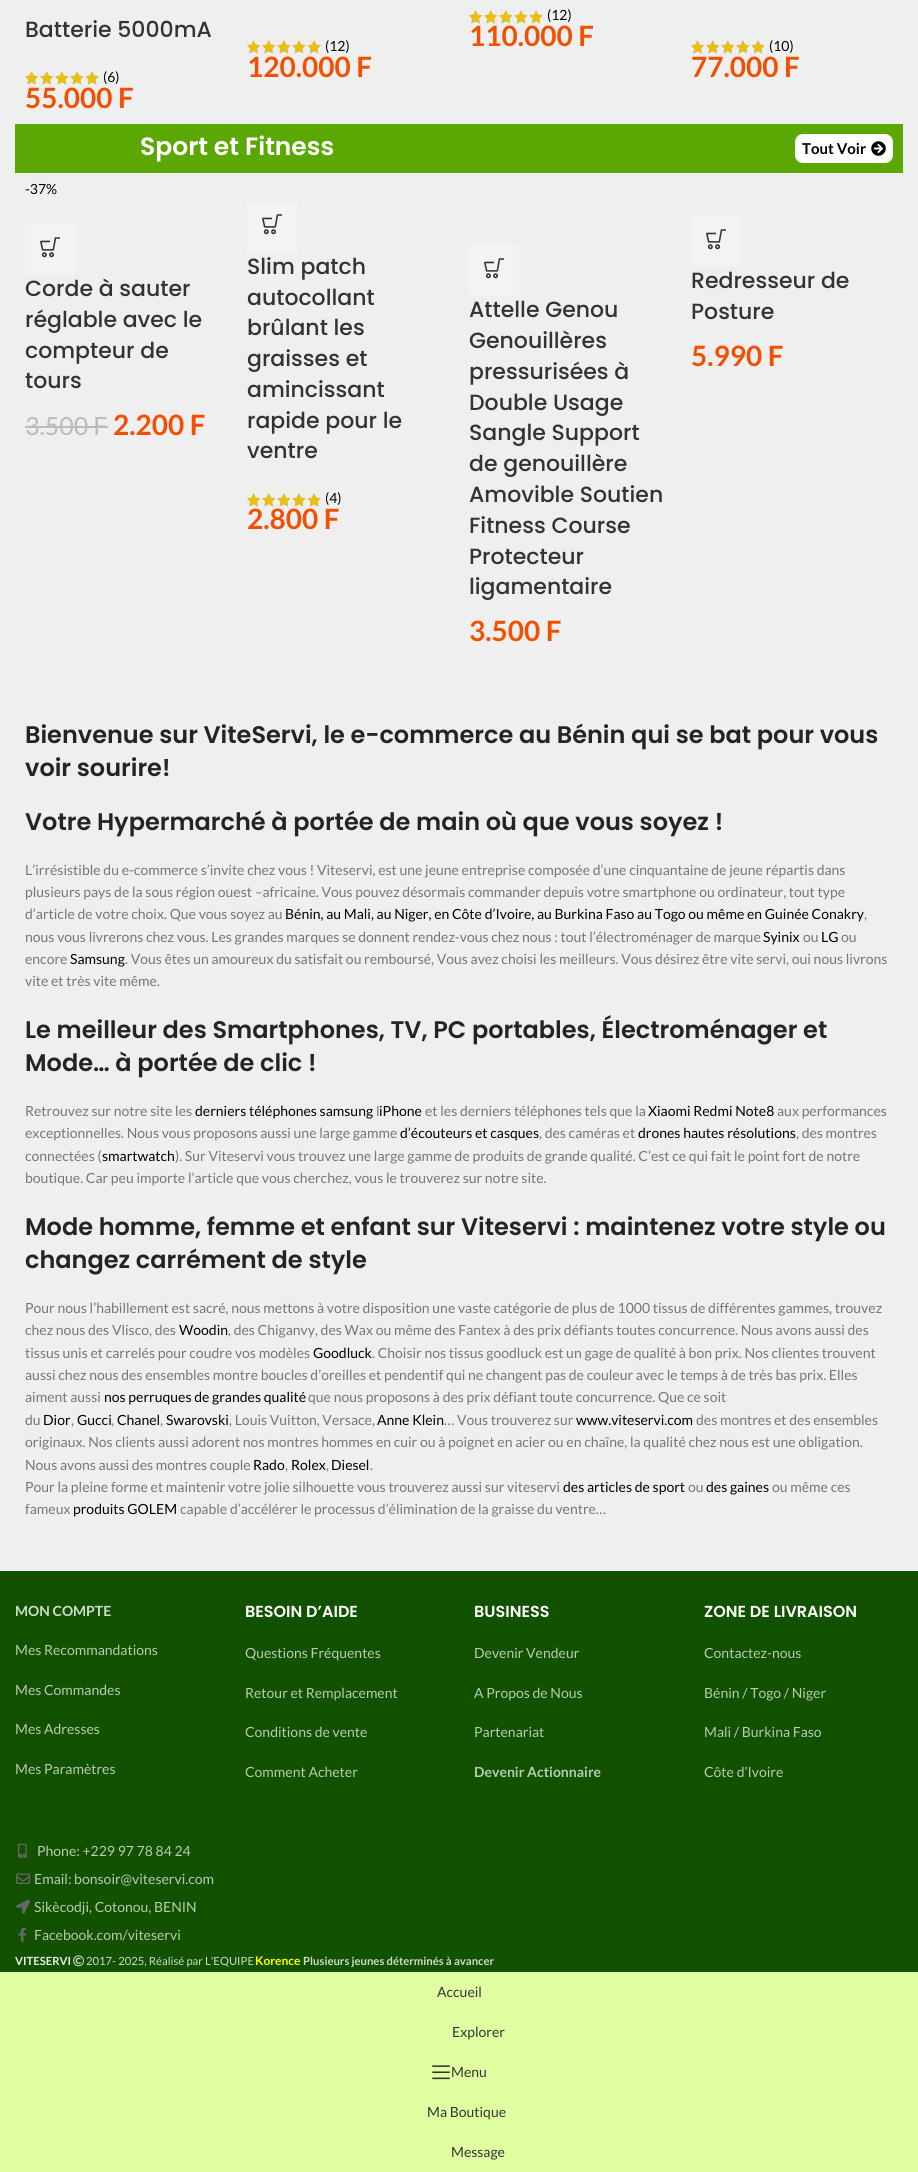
import math
import cairo



def rounded_rect(context, x, y, w, h, r):
    context.new_sub_path()
    for i, (u, v) in enumerate([(x + w - r, y + h - r), (x + r, y + h - r), (x + r, y + r), (x + w - r, y + r)]):
        context.arc(u, v, r, i * math.pi / 2, (i + 1) * math.pi / 2)
    context.close_path()


def draw_image(context, path, x, y, w, h):
    context.save()
    context.set_source_surface(cairo.ImageSurface.create_from_png(path), x, y)
    context.rectangle(x, y, w, h)
    context.fill()
    context.restore()


def draw(context):
    context.set_source_rgb(223 / 255, 1, 161 / 255)
    context.paint()
    context.set_source_rgb(239 / 255, 239 / 255, 239 / 255)
    context.rectangle(0, 0, 918, 1571)
    context.fill()
    draw_image(context, "images/1.png", 25, 71, 74, 14)
    draw_image(context, "images/2.png", 25, 71, 74, 14)
    draw_image(context, "images/1.png", 247, 40, 74, 14)
    draw_image(context, "images/2.png", 247, 40, 74, 14)
    draw_image(context, "images/1.png", 469, 10, 74, 14)
    draw_image(context, "images/2.png", 469, 10, 74, 14)
    draw_image(context, "images/1.png", 691, 40, 74, 14)
    draw_image(context, "images/2.png", 691, 40, 74, 14)
    context.set_source_rgb(91 / 255, 168 / 255, 5 / 255)
    context.rectangle(15, 124, 888, 49)
    context.fill()
    context.set_source_rgb(1, 1, 1)
    rounded_rect(context, 795, 134, 98, 29, 8)
    context.fill()
    draw_image(context, "images/3.png", 871, 141, 15, 15)
    context.set_source_rgb(243 / 255, 243 / 255, 243 / 255)
    context.rectangle(25, 224, 50, 50)
    context.fill()
    draw_image(context, "images/4.png", 40, 237, 20, 21)
    context.set_source_rgb(187 / 255, 187 / 255, 187 / 255)
    context.rectangle(25, 426, 83, 2)
    context.fill()
    context.set_source_rgb(243 / 255, 243 / 255, 243 / 255)
    context.rectangle(247, 202, 50, 50)
    context.fill()
    draw_image(context, "images/4.png", 262, 214, 20, 21)
    draw_image(context, "images/1.png", 247, 493, 74, 14)
    draw_image(context, "images/2.png", 247, 493, 74, 14)
    context.rectangle(469, 245, 50, 50)
    context.fill()
    draw_image(context, "images/4.png", 484, 258, 20, 21)
    context.rectangle(691, 216, 50, 50)
    context.fill()
    draw_image(context, "images/4.png", 706, 229, 20, 21)
    context.set_source_rgb(17 / 255, 81 / 255, 0)
    context.rectangle(0, 1571, 918, 401)
    context.fill()
    draw_image(context, "images/5.png", 18, 1843, 9, 15)
    draw_image(context, "images/6.png", 16, 1873, 14, 11)
    draw_image(context, "images/7.png", 16, 1899, 14, 15)
    draw_image(context, "images/8.png", 18, 1927, 9, 15)
    draw_image(context, "images/9.png", 73, 1955, 11, 12)
    draw_image(context, "images/10.png", 432, 2065, 18, 15)
    context.select_font_face("Poppins Medium")
    context.set_font_size(22)
    context.set_source_rgb(51 / 255, 51 / 255, 51 / 255)
    context.move_to(25, 37)
    context.show_text("Batterie 5000mA")
    context.select_font_face("Lato")
    context.set_font_size(14)
    context.set_source_rgb(0, 0, 0)
    context.move_to(103, 82)
    context.show_text("(6)")
    context.select_font_face("Lato", cairo.FontSlant.NORMAL, cairo.FontWeight.BOLD)
    context.set_font_size(28)
    context.set_source_rgb(242 / 255, 80 / 255, 0)
    context.move_to(25, 108)
    context.show_text("55.000 F")
    context.select_font_face("Lato")
    context.set_font_size(14)
    context.set_source_rgb(0, 0, 0)
    context.move_to(325, 51)
    context.show_text("(12)")
    context.select_font_face("Lato", cairo.FontSlant.NORMAL, cairo.FontWeight.BOLD)
    context.set_font_size(28)
    context.set_source_rgb(242 / 255, 80 / 255, 0)
    context.move_to(247, 77)
    context.show_text("120.000 F")
    context.select_font_face("Lato")
    context.set_font_size(14)
    context.set_source_rgb(0, 0, 0)
    context.move_to(547, 20)
    context.show_text("(12)")
    context.select_font_face("Lato", cairo.FontSlant.NORMAL, cairo.FontWeight.BOLD)
    context.set_font_size(28)
    context.set_source_rgb(242 / 255, 80 / 255, 0)
    context.move_to(469, 46)
    context.show_text("110.000 F")
    context.select_font_face("Lato")
    context.set_font_size(14)
    context.set_source_rgb(0, 0, 0)
    context.move_to(769, 51)
    context.show_text("(10)")
    context.select_font_face("Lato", cairo.FontSlant.NORMAL, cairo.FontWeight.BOLD)
    context.set_font_size(28)
    context.set_source_rgb(242 / 255, 80 / 255, 0)
    context.move_to(691, 77)
    context.show_text("77.000 F")
    context.select_font_face("Poppins SemiBold")
    context.set_font_size(25)
    context.set_source_rgb(1, 1, 1)
    context.move_to(140, 155)
    context.show_text("Sport et Fitness")
    context.select_font_face("Lato", cairo.FontSlant.NORMAL, cairo.FontWeight.BOLD)
    context.set_font_size(15)
    context.set_source_rgb(0, 0, 0)
    context.move_to(802, 154)
    context.show_text("Tout Voir")
    context.select_font_face("Lato")
    context.set_font_size(14)
    context.move_to(25, 194)
    context.show_text("-37%")
    context.select_font_face("Poppins Medium")
    context.set_font_size(22)
    context.set_source_rgb(51 / 255, 51 / 255, 51 / 255)
    context.move_to(25, 296)
    context.show_text("Corde à sauter")
    context.move_to(25, 327)
    context.show_text("réglable avec le")
    context.move_to(25, 358)
    context.show_text("compteur de")
    context.move_to(25, 388)
    context.show_text("tours")
    context.select_font_face("Lato")
    context.set_font_size(25)
    context.set_source_rgb(187 / 255, 187 / 255, 187 / 255)
    context.move_to(25, 435)
    context.show_text("3.500 F")
    context.select_font_face("Lato", cairo.FontSlant.NORMAL, cairo.FontWeight.BOLD)
    context.set_font_size(28)
    context.set_source_rgb(242 / 255, 80 / 255, 0)
    context.move_to(113, 435)
    context.show_text("2.200 F")
    context.select_font_face("Poppins Medium")
    context.set_font_size(22)
    context.set_source_rgb(51 / 255, 51 / 255, 51 / 255)
    context.move_to(247, 274)
    context.show_text("Slim patch")
    context.move_to(247, 305)
    context.show_text("autocollant")
    context.move_to(247, 335)
    context.show_text("brûlant les")
    context.move_to(247, 366)
    context.show_text("graisses et")
    context.move_to(247, 397)
    context.show_text("amincissant")
    context.move_to(247, 428)
    context.show_text("rapide pour le")
    context.move_to(247, 458)
    context.show_text("ventre")
    context.select_font_face("Lato")
    context.set_font_size(14)
    context.set_source_rgb(0, 0, 0)
    context.move_to(325, 503)
    context.show_text("(4)")
    context.select_font_face("Lato", cairo.FontSlant.NORMAL, cairo.FontWeight.BOLD)
    context.set_font_size(28)
    context.set_source_rgb(242 / 255, 80 / 255, 0)
    context.move_to(247, 529)
    context.show_text("2.800 F")
    context.select_font_face("Poppins Medium")
    context.set_font_size(22)
    context.set_source_rgb(51 / 255, 51 / 255, 51 / 255)
    context.move_to(469, 317)
    context.show_text("Attelle Genou")
    context.move_to(469, 348)
    context.show_text("Genouillères")
    context.move_to(469, 379)
    context.show_text("pressurisées à")
    context.move_to(469, 410)
    context.show_text("Double Usage")
    context.move_to(469, 440)
    context.show_text("Sangle Support")
    context.move_to(469, 471)
    context.show_text("de genouillère")
    context.move_to(469, 502)
    context.show_text("Amovible Soutien")
    context.move_to(469, 533)
    context.show_text("Fitness Course")
    context.move_to(469, 564)
    context.show_text("Protecteur")
    context.move_to(469, 594)
    context.show_text("ligamentaire")
    context.select_font_face("Lato", cairo.FontSlant.NORMAL, cairo.FontWeight.BOLD)
    context.set_font_size(28)
    context.set_source_rgb(242 / 255, 80 / 255, 0)
    context.move_to(469, 641)
    context.show_text("3.500 F")
    context.select_font_face("Poppins Medium")
    context.set_font_size(22)
    context.set_source_rgb(51 / 255, 51 / 255, 51 / 255)
    context.move_to(691, 288)
    context.show_text("Redresseur de")
    context.move_to(691, 319)
    context.show_text("Posture")
    context.select_font_face("Lato", cairo.FontSlant.NORMAL, cairo.FontWeight.BOLD)
    context.set_font_size(28)
    context.set_source_rgb(242 / 255, 80 / 255, 0)
    context.move_to(691, 366)
    context.show_text("5.990 F")
    context.select_font_face("Poppins SemiBold")
    context.set_font_size(24)
    context.set_source_rgb(36 / 255, 36 / 255, 36 / 255)
    context.move_to(25, 743)
    context.show_text("Bienvenue sur ViteServi, le e-commerce au Bénin qui se bat pour vous")
    context.move_to(25, 776)
    context.show_text("voir sourire!")
    context.move_to(25, 830)
    context.show_text("Votre Hypermarché à portée de main où que vous soyez !")
    context.select_font_face("Lato")
    context.set_font_size(14)
    context.set_source_rgb(118 / 255, 118 / 255, 118 / 255)
    context.move_to(25, 875)
    context.show_text("L’irrésistible du e-commerce s’invite chez vous ! Viteservi, est une jeune entreprise composée d’une cinquantaine de jeune répartis dans")
    context.move_to(25, 897)
    context.show_text("plusieurs pays de la sous région ouest –africaine. Vous pouvez désormais commander depuis votre smartphone ou ordinateur, tout type")
    context.move_to(25, 919)
    context.show_text("d’article de votre choix. Que vous soyez au")
    context.set_source_rgb(0, 0, 0)
    context.move_to(285, 919)
    context.show_text("Bénin, au Mali, au Niger, en Côte d’Ivoire, au Burkina Faso au Togo ou même en Guinée Conakry")
    context.set_source_rgb(118 / 255, 118 / 255, 118 / 255)
    context.move_to(864, 919)
    context.show_text(",")
    context.move_to(25, 942)
    context.show_text("nous vous livrerons chez vous. Les grandes marques se donnent rendez-vous chez nous : tout l’électroménager de marque")
    context.set_source_rgb(0, 0, 0)
    context.move_to(763, 942)
    context.show_text("Syinix")
    context.set_source_rgb(118 / 255, 118 / 255, 118 / 255)
    context.move_to(803, 942)
    context.show_text("ou")
    context.set_source_rgb(0, 0, 0)
    context.move_to(821, 942)
    context.show_text("LG")
    context.set_source_rgb(118 / 255, 118 / 255, 118 / 255)
    context.move_to(841, 942)
    context.show_text("ou")
    context.move_to(25, 964)
    context.show_text("encore")
    context.set_source_rgb(0, 0, 0)
    context.move_to(70, 964)
    context.show_text("Samsung")
    context.set_source_rgb(118 / 255, 118 / 255, 118 / 255)
    context.move_to(125, 964)
    context.show_text(". Vous êtes un amoureux du satisfait ou remboursé, Vous avez choisi les meilleurs. Vous désirez être vite servi, oui nous livrons")
    context.move_to(25, 986)
    context.show_text("vite et très vite même.")
    context.select_font_face("Poppins SemiBold")
    context.set_font_size(24)
    context.set_source_rgb(36 / 255, 36 / 255, 36 / 255)
    context.move_to(25, 1038)
    context.show_text("Le meilleur des Smartphones, TV, PC portables, Électroménager et")
    context.move_to(25, 1071)
    context.show_text("Mode… à portée de clic !")
    context.select_font_face("Lato")
    context.set_font_size(14)
    context.set_source_rgb(118 / 255, 118 / 255, 118 / 255)
    context.move_to(25, 1116)
    context.show_text("Retrouvez sur notre site les")
    context.set_source_rgb(0, 0, 0)
    context.move_to(195, 1116)
    context.show_text("derniers téléphones samsung")
    context.set_source_rgb(118 / 255, 118 / 255, 118 / 255)
    context.move_to(376, 1116)
    context.show_text("l")
    context.set_source_rgb(0, 0, 0)
    context.move_to(379, 1116)
    context.show_text("iPhone")
    context.set_source_rgb(118 / 255, 118 / 255, 118 / 255)
    context.move_to(425, 1116)
    context.show_text("et les derniers téléphones tels que la")
    context.set_source_rgb(0, 0, 0)
    context.move_to(648, 1116)
    context.show_text("Xiaomi Redmi Note8")
    context.set_source_rgb(118 / 255, 118 / 255, 118 / 255)
    context.move_to(777, 1116)
    context.show_text("aux performances")
    context.move_to(25, 1138)
    context.show_text("exceptionnelles. Nous vous proposons aussi une large gamme")
    context.set_source_rgb(0, 0, 0)
    context.move_to(400, 1138)
    context.show_text("d’écouteurs et casques")
    context.set_source_rgb(118 / 255, 118 / 255, 118 / 255)
    context.move_to(539, 1138)
    context.show_text(", des caméras et")
    context.set_source_rgb(0, 0, 0)
    context.move_to(638, 1138)
    context.show_text("drones hautes résolutions")
    context.set_source_rgb(118 / 255, 118 / 255, 118 / 255)
    context.move_to(796, 1138)
    context.show_text(", des montres")
    context.move_to(25, 1161)
    context.show_text("connectées (")
    context.set_source_rgb(0, 0, 0)
    context.move_to(102, 1161)
    context.show_text("smartwatch")
    context.set_source_rgb(118 / 255, 118 / 255, 118 / 255)
    context.move_to(175, 1161)
    context.show_text("). Sur Viteservi vous trouvez une large gamme de produits de grande qualité. C’est ce qui fait le point fort de notre")
    context.move_to(25, 1183)
    context.show_text("boutique. Car peu importe l’article que vous cherchez, vous le trouverez sur notre site.")
    context.select_font_face("Poppins SemiBold")
    context.set_font_size(24)
    context.set_source_rgb(36 / 255, 36 / 255, 36 / 255)
    context.move_to(25, 1235)
    context.show_text("Mode homme, femme et enfant sur Viteservi : maintenez votre style ou")
    context.move_to(25, 1268)
    context.show_text("changez carrément de style")
    context.select_font_face("Lato")
    context.set_font_size(14)
    context.set_source_rgb(118 / 255, 118 / 255, 118 / 255)
    context.move_to(25, 1313)
    context.show_text("Pour nous l’habillement est sacré, nous mettons à votre disposition une vaste catégorie de plus de 1000 tissus de différentes gammes, trouvez")
    context.move_to(25, 1335)
    context.show_text("chez nous des Vlisco, des")
    context.set_source_rgb(0, 0, 0)
    context.move_to(179, 1335)
    context.show_text("Woodin")
    context.set_source_rgb(118 / 255, 118 / 255, 118 / 255)
    context.move_to(228, 1335)
    context.show_text(", des Chiganvy, des Wax ou même des Fantex à des prix défiants toutes concurrence. Nous avons aussi des")
    context.move_to(25, 1358)
    context.show_text("tissus unis et carrelés pour coudre vos modèles")
    context.set_source_rgb(0, 0, 0)
    context.move_to(313, 1358)
    context.show_text("Goodluck")
    context.set_source_rgb(118 / 255, 118 / 255, 118 / 255)
    context.move_to(372, 1358)
    context.show_text(". Choisir nos tissus goodluck est un gage de qualité à bon prix. Nos clientes trouvent")
    context.move_to(25, 1380)
    context.show_text("aussi chez nous des ensembles montre boucles d’oreilles et pendentif qui ne changent pas de couleur avec le temps à de très bas prix. Elles")
    context.move_to(25, 1402)
    context.show_text("aiment aussi")
    context.set_source_rgb(0, 0, 0)
    context.move_to(104, 1402)
    context.show_text("nos perruques de grandes qualité")
    context.set_source_rgb(118 / 255, 118 / 255, 118 / 255)
    context.move_to(308, 1402)
    context.show_text("que nous proposons à des prix défiant toute concurrence. Que ce soit")
    context.move_to(25, 1425)
    context.show_text("du")
    context.set_source_rgb(0, 0, 0)
    context.move_to(43, 1425)
    context.show_text("Dior")
    context.set_source_rgb(118 / 255, 118 / 255, 118 / 255)
    context.move_to(71, 1425)
    context.show_text(",")
    context.set_source_rgb(0, 0, 0)
    context.move_to(77, 1425)
    context.show_text("Gucci")
    context.set_source_rgb(118 / 255, 118 / 255, 118 / 255)
    context.move_to(111, 1425)
    context.show_text(",")
    context.set_source_rgb(0, 0, 0)
    context.move_to(117, 1425)
    context.show_text("Chanel")
    context.set_source_rgb(118 / 255, 118 / 255, 118 / 255)
    context.move_to(160, 1425)
    context.show_text(",")
    context.set_source_rgb(0, 0, 0)
    context.move_to(166, 1425)
    context.show_text("Swarovski")
    context.set_source_rgb(118 / 255, 118 / 255, 118 / 255)
    context.move_to(229, 1425)
    context.show_text(", Louis Vuitton, Versace,")
    context.set_source_rgb(0, 0, 0)
    context.move_to(377, 1425)
    context.show_text("Anne Klein")
    context.set_source_rgb(118 / 255, 118 / 255, 118 / 255)
    context.move_to(444, 1425)
    context.show_text("… Vous trouverez sur")
    context.set_source_rgb(0, 0, 0)
    context.move_to(576, 1425)
    context.show_text("www.viteservi.com")
    context.set_source_rgb(118 / 255, 118 / 255, 118 / 255)
    context.move_to(696, 1425)
    context.show_text("des montres et des ensembles")
    context.move_to(25, 1447)
    context.show_text("originaux. Nos clients aussi adorent nos montres hommes en cuir ou à poignet en acier ou en chaîne, la qualité chez nous est une obligation.")
    context.move_to(25, 1470)
    context.show_text("Nous avons aussi des montres couple")
    context.set_source_rgb(0, 0, 0)
    context.move_to(253, 1470)
    context.show_text("Rado")
    context.set_source_rgb(118 / 255, 118 / 255, 118 / 255)
    context.move_to(285, 1470)
    context.show_text(",")
    context.set_source_rgb(0, 0, 0)
    context.move_to(291, 1470)
    context.show_text("Rolex")
    context.set_source_rgb(118 / 255, 118 / 255, 118 / 255)
    context.move_to(326, 1470)
    context.show_text(",")
    context.set_source_rgb(0, 0, 0)
    context.move_to(331, 1470)
    context.show_text("Diesel")
    context.set_source_rgb(118 / 255, 118 / 255, 118 / 255)
    context.move_to(370, 1470)
    context.show_text(".")
    context.move_to(25, 1492)
    context.show_text("Pour la pleine forme et maintenir votre jolie silhouette vous trouverez aussi sur viteservi")
    context.set_source_rgb(0, 0, 0)
    context.move_to(563, 1492)
    context.show_text("des articles de sport")
    context.set_source_rgb(118 / 255, 118 / 255, 118 / 255)
    context.move_to(688, 1492)
    context.show_text("ou")
    context.set_source_rgb(0, 0, 0)
    context.move_to(706, 1492)
    context.show_text("des gaines")
    context.set_source_rgb(118 / 255, 118 / 255, 118 / 255)
    context.move_to(772, 1492)
    context.show_text("ou même ces")
    context.move_to(25, 1514)
    context.show_text("fameux")
    context.set_source_rgb(0, 0, 0)
    context.move_to(73, 1514)
    context.show_text("produits GOLEM")
    context.set_source_rgb(118 / 255, 118 / 255, 118 / 255)
    context.move_to(180, 1514)
    context.show_text("capable d’accélérer le processus d’élimination de la graisse du ventre…")
    context.select_font_face("Lato", cairo.FontSlant.NORMAL, cairo.FontWeight.BOLD)
    context.set_source_rgb(207 / 255, 220 / 255, 204 / 255)
    context.move_to(15, 1616)
    context.show_text("MON COMPTE")
    context.select_font_face("Lato")
    context.set_source_rgb(184 / 255, 203 / 255, 179 / 255)
    context.move_to(15, 1655)
    context.show_text("Mes Recommandations")
    context.move_to(15, 1695)
    context.show_text("Mes Commandes")
    context.move_to(15, 1734)
    context.show_text("Mes Adresses")
    context.move_to(15, 1774)
    context.show_text("Mes Paramètres")
    context.select_font_face("Poppins SemiBold")
    context.set_font_size(16)
    context.set_source_rgb(1, 1, 1)
    context.move_to(245, 1617)
    context.show_text("BESOIN D’AIDE")
    context.select_font_face("Lato")
    context.set_font_size(14)
    context.set_source_rgb(184 / 255, 203 / 255, 179 / 255)
    context.move_to(245, 1658)
    context.show_text("Questions Fréquentes")
    context.move_to(245, 1698)
    context.show_text("Retour et Remplacement")
    context.move_to(245, 1737)
    context.show_text("Conditions de vente")
    context.move_to(245, 1777)
    context.show_text("Comment Acheter")
    context.select_font_face("Poppins SemiBold")
    context.set_font_size(16)
    context.set_source_rgb(1, 1, 1)
    context.move_to(474, 1617)
    context.show_text("BUSINESS")
    context.select_font_face("Lato")
    context.set_font_size(14)
    context.set_source_rgb(184 / 255, 203 / 255, 179 / 255)
    context.move_to(474, 1658)
    context.show_text("Devenir Vendeur")
    context.move_to(474, 1698)
    context.show_text("A Propos de Nous")
    context.move_to(474, 1737)
    context.show_text("Partenariat")
    context.select_font_face("Lato", cairo.FontSlant.NORMAL, cairo.FontWeight.BOLD)
    context.move_to(474, 1777)
    context.show_text("Devenir Actionnaire")
    context.select_font_face("Poppins SemiBold")
    context.set_font_size(16)
    context.set_source_rgb(1, 1, 1)
    context.move_to(704, 1617)
    context.show_text("ZONE DE LIVRAISON")
    context.select_font_face("Lato")
    context.set_font_size(14)
    context.set_source_rgb(184 / 255, 203 / 255, 179 / 255)
    context.move_to(704, 1658)
    context.show_text("Contactez-nous")
    context.move_to(704, 1698)
    context.show_text("Bénin / Togo / Niger")
    context.move_to(704, 1737)
    context.show_text("Mali / Burkina Faso")
    context.move_to(704, 1777)
    context.show_text("Côte d’Ivoire")
    context.move_to(37, 1856)
    context.show_text("Phone: +229 97 78 84 24")
    context.move_to(34, 1884)
    context.show_text("Email: bonsoir@viteservi.com")
    context.move_to(34, 1912)
    context.show_text("Sikècodji, Cotonou, BENIN")
    context.move_to(34, 1940)
    context.show_text("Facebook.com/viteservi")
    context.select_font_face("Lato", cairo.FontSlant.NORMAL, cairo.FontWeight.BOLD)
    context.set_font_size(11.25)
    context.set_source_rgb(231 / 255, 238 / 255, 230 / 255)
    context.move_to(15, 1965)
    context.show_text("VITESERVI")
    context.select_font_face("Lato")
    context.set_source_rgb(207 / 255, 220 / 255, 204 / 255)
    context.move_to(86, 1965)
    context.show_text("2017- 2025, Réalisé par L'EQUIPE")
    context.select_font_face("Lato", cairo.FontSlant.NORMAL, cairo.FontWeight.BOLD)
    context.set_font_size(12)
    context.set_source_rgb(1, 1, 0)
    context.move_to(255, 1965)
    context.show_text("Korence")
    context.set_font_size(11.25)
    context.set_source_rgb(207 / 255, 220 / 255, 204 / 255)
    context.move_to(303, 1965)
    context.show_text("Plusieurs jeunes déterminés à avancer")
    context.select_font_face("Lato")
    context.set_font_size(14)
    context.set_source_rgb(51 / 255, 51 / 255, 51 / 255)
    context.move_to(437, 1997)
    context.show_text("Accueil")
    context.move_to(452, 2037)
    context.show_text("Explorer")
    context.move_to(451, 2077)
    context.show_text("Menu")
    context.move_to(427, 2117)
    context.show_text("Ma Boutique")
    context.move_to(451, 2157)
    context.show_text("Message")


surface = cairo.ImageSurface(cairo.Format.RGB24, 918, 2172)
context = cairo.Context(surface)
options = cairo.FontOptions()
options.set_hint_metrics(cairo.HintMetrics.OFF)
options.set_hint_style(cairo.HintStyle.NONE)
context.set_font_options(options)
context.set_miter_limit(4)
draw(context)
surface.write_to_png("out.png")
